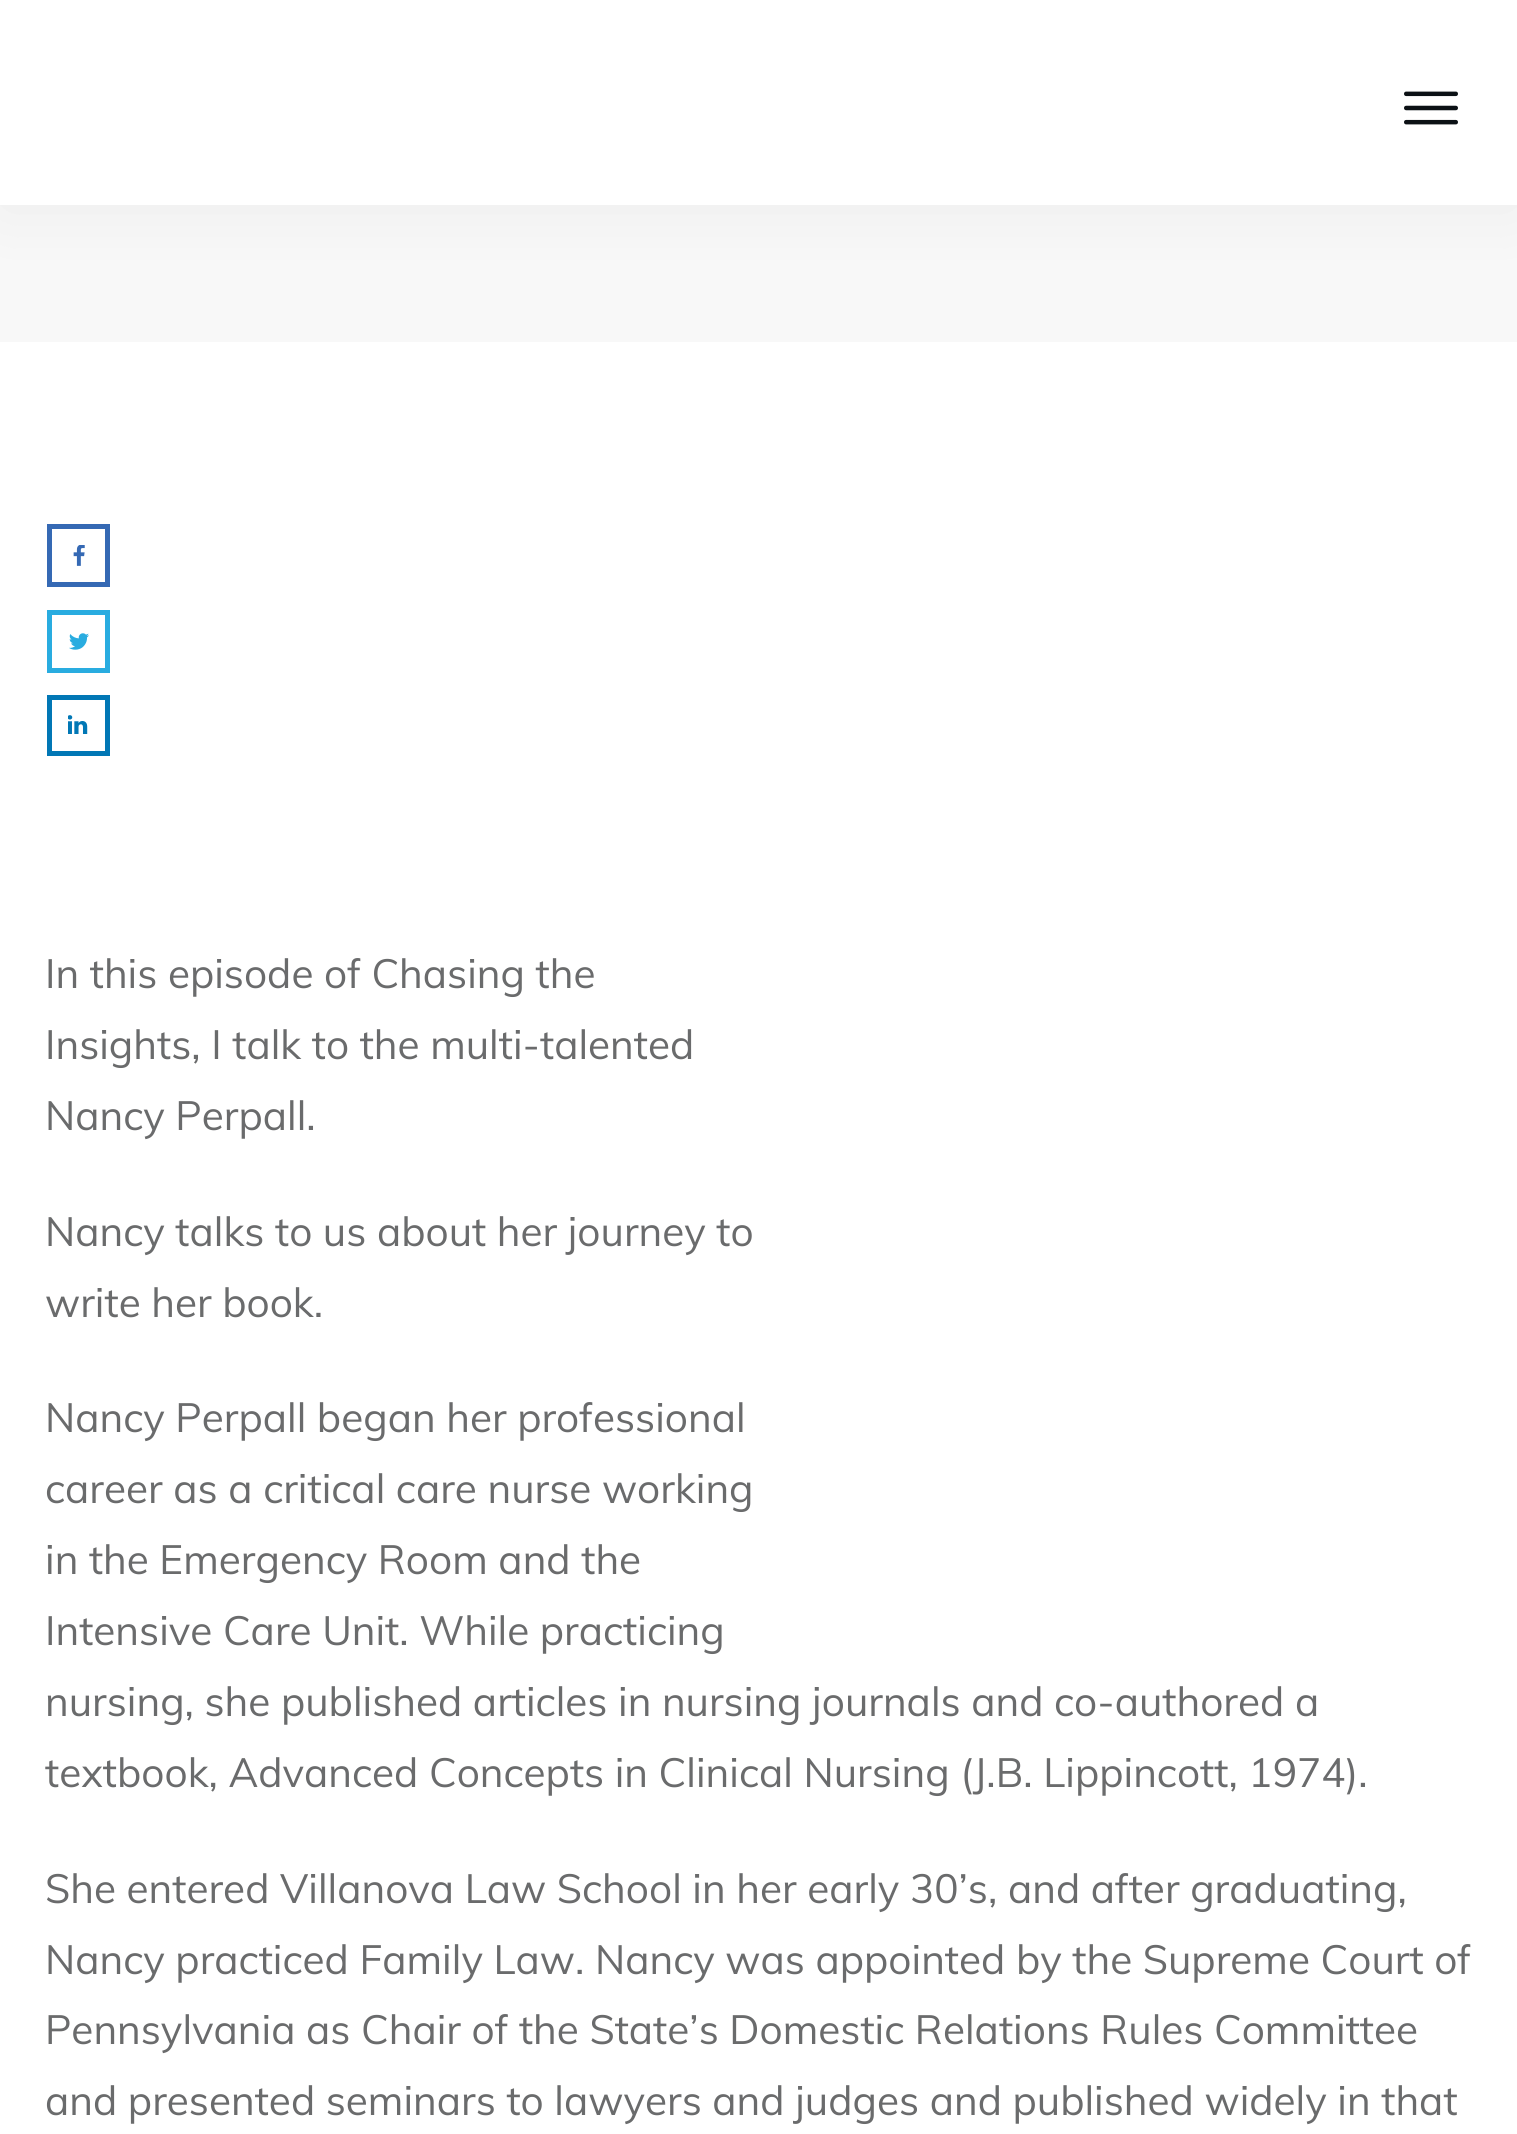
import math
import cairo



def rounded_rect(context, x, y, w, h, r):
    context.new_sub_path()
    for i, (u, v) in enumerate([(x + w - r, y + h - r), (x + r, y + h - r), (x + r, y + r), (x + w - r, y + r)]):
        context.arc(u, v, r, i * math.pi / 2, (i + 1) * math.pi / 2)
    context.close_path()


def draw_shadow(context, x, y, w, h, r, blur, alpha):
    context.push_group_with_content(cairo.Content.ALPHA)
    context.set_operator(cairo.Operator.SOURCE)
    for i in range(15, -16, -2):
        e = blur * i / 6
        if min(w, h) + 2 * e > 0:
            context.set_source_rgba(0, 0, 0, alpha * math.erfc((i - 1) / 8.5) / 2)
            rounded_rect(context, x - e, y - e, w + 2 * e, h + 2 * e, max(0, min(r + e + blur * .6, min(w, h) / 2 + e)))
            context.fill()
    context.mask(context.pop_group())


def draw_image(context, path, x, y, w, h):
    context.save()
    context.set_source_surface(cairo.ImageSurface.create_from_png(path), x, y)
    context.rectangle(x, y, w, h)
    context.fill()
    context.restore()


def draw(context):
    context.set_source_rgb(1, 1, 1)
    context.paint()
    context.set_source_rgb(248 / 255, 248 / 255, 248 / 255)
    context.rectangle(0, 205, 1517, 137)
    context.fill()
    context.set_source_rgb(0, 0, 0)
    draw_shadow(context, 0, 5, 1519, 204, 0, 34, 0.05)
    context.set_source_rgb(1, 1, 1)
    context.rectangle(0, 0, 1517, 205)
    context.fill()
    draw_image(context, "images/1.png", 1404, 91, 54, 34)
    context.rectangle(49.5, 526.5, 58, 58)
    context.set_source_rgb(53 / 255, 105 / 255, 180 / 255)
    context.set_line_width(5)
    context.stroke()
    draw_image(context, "images/2.png", 73, 545, 12, 21)
    context.rectangle(49.5, 612.5, 58, 58)
    context.set_source_rgb(41 / 255, 172 / 255, 224 / 255)
    context.stroke()
    draw_image(context, "images/3.png", 69, 633, 20, 17)
    context.rectangle(49.5, 697.5, 58, 56)
    context.set_source_rgb(1 / 255, 119 / 255, 181 / 255)
    context.stroke()
    draw_image(context, "images/4.png", 68, 715, 20, 19)
    context.select_font_face("Muli")
    context.set_font_size(40.5)
    context.set_source_rgb(106 / 255, 107 / 255, 108 / 255)
    context.move_to(45, 988)
    context.show_text("In this episode of Chasing the")
    context.move_to(45, 1059)
    context.show_text("Insights, I talk to the multi-talented")
    context.move_to(45, 1130)
    context.show_text("Nancy Perpall.")
    context.move_to(45, 1246)
    context.show_text("Nancy talks to us about her journey to")
    context.move_to(45, 1317)
    context.show_text("write her book.")
    context.move_to(45, 1432)
    context.show_text("Nancy Perpall began her professional")
    context.move_to(45, 1503)
    context.show_text("career as a critical care nurse working")
    context.move_to(45, 1574)
    context.show_text("in the Emergency Room and the")
    context.move_to(45, 1645)
    context.show_text("Intensive Care Unit. While practicing")
    context.move_to(45, 1716)
    context.show_text("nursing, she published articles in nursing journals and co-authored a")
    context.move_to(45, 1787)
    context.show_text("textbook, Advanced Concepts in Clinical Nursing (J.B. Lippincott, 1974).")
    context.move_to(45, 1903)
    context.show_text("She entered Villanova Law School in her early 30’s, and after graduating,")
    context.move_to(45, 1974)
    context.show_text("Nancy practiced Family Law. Nancy was appointed by the Supreme Court of")
    context.move_to(45, 2044)
    context.show_text("Pennsylvania as Chair of the State’s Domestic Relations Rules Committee")
    context.move_to(45, 2115)
    context.show_text("and presented seminars to lawyers and judges and published widely in that")


surface = cairo.ImageSurface(cairo.Format.RGB24, 1517, 2134)
context = cairo.Context(surface)
options = cairo.FontOptions()
options.set_hint_metrics(cairo.HintMetrics.OFF)
options.set_hint_style(cairo.HintStyle.NONE)
context.set_font_options(options)
context.set_miter_limit(4)
draw(context)
surface.write_to_png("out.png")
